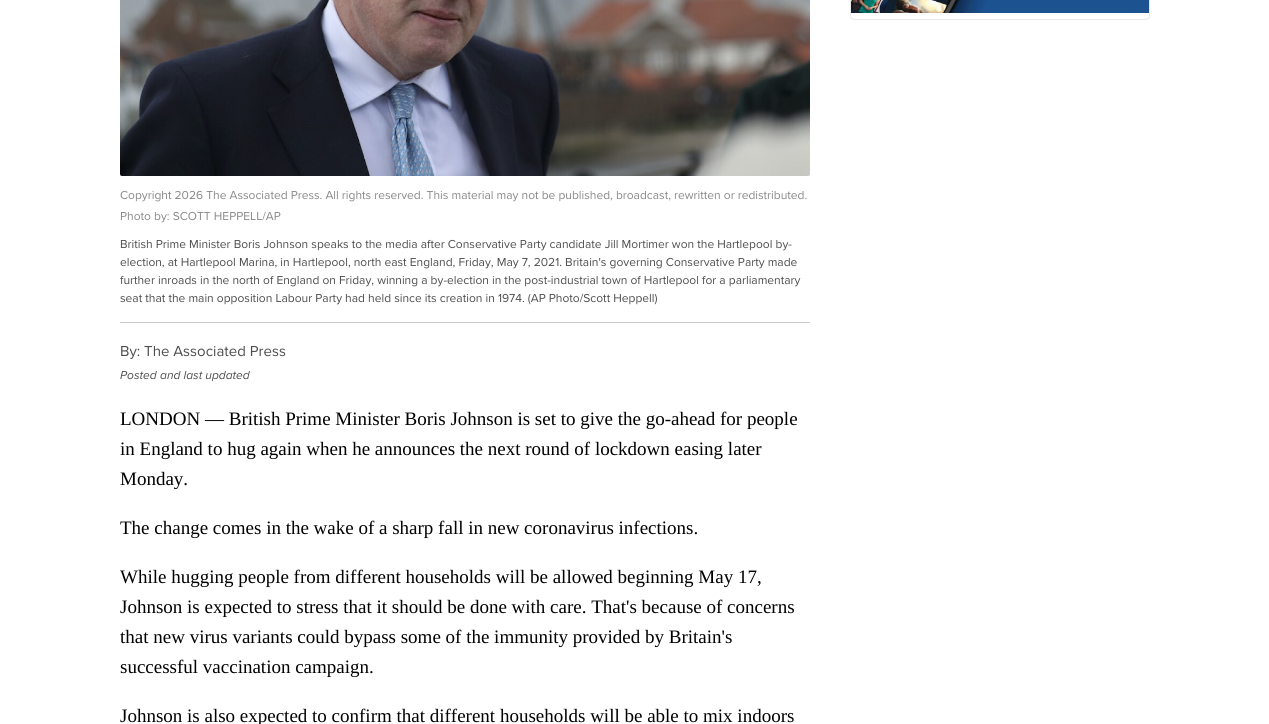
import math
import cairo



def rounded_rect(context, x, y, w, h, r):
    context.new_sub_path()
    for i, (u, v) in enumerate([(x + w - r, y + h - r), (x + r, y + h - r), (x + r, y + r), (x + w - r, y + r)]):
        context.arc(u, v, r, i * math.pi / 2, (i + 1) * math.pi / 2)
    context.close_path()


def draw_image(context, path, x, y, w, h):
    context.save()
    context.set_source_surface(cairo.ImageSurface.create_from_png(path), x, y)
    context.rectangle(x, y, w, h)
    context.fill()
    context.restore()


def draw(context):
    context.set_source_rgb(1, 1, 1)
    context.paint()
    rounded_rect(context, 850.5, -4.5, 299, 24, 3.5)
    context.set_source_rgb(231 / 255, 231 / 255, 231 / 255)
    context.set_line_width(1)
    context.stroke()
    draw_image(context, "images/1.png", 851, 0, 298, 13)
    context.set_source_rgb(204 / 255, 204 / 255, 204 / 255)
    context.rectangle(120, 322, 690, 1)
    context.fill()
    draw_image(context, "images/2.png", 120, 0, 690, 176)
    context.select_font_face("Proxima Nova")
    context.set_font_size(12)
    context.set_source_rgb(136 / 255, 136 / 255, 136 / 255)
    context.move_to(120, 199)
    context.show_text("Copyright 2026 The Associated Press. All rights reserved. This material may not be published, broadcast, rewritten or redistributed.")
    context.move_to(120, 220)
    context.show_text("Photo by: SCOTT HEPPELL/AP")
    context.set_source_rgb(77 / 255, 77 / 255, 77 / 255)
    context.move_to(120, 248)
    context.show_text("British Prime Minister Boris Johnson speaks to the media after Conservative Party candidate Jill Mortimer won the Hartlepool by-")
    context.move_to(120, 266)
    context.show_text("election, at Hartlepool Marina, in Hartlepool, north east England, Friday, May 7, 2021. Britain's governing Conservative Party made")
    context.move_to(120, 284)
    context.show_text("further inroads in the north of England on Friday, winning a by-election in the post-industrial town of Hartlepool for a parliamentary")
    context.move_to(120, 302)
    context.show_text("seat that the main opposition Labour Party had held since its creation in 1974. (AP Photo/Scott Heppell)")
    context.set_font_size(15)
    context.move_to(120, 356)
    context.show_text("By: The Associated Press")
    context.select_font_face("Proxima Nova", cairo.FontSlant.ITALIC)
    context.set_font_size(12)
    context.move_to(120, 379)
    context.show_text("Posted")
    context.move_to(160, 379)
    context.show_text("and last updated")
    context.select_font_face("Liberation Serif")
    context.set_font_size(19)
    context.set_source_rgb(0, 0, 0)
    context.move_to(120, 425)
    context.show_text("LONDON — British Prime Minister Boris Johnson is set to give the go-ahead for people")
    context.move_to(120, 455)
    context.show_text("in England to hug again when he announces the next round of lockdown easing later")
    context.move_to(120, 485)
    context.show_text("Monday.")
    context.move_to(120, 534)
    context.show_text("The change comes in the wake of a sharp fall in new coronavirus infections.")
    context.move_to(120, 583)
    context.show_text("While hugging people from different households will be allowed beginning May 17,")
    context.move_to(120, 613)
    context.show_text("Johnson is expected to stress that it should be done with care. That's because of concerns")
    context.move_to(120, 643)
    context.show_text("that new virus variants could bypass some of the immunity provided by Britain's")
    context.move_to(120, 673)
    context.show_text("successful vaccination campaign.")
    context.move_to(120, 722)
    context.show_text("Johnson is also expected to confirm that different households will be able to mix indoors")


surface = cairo.ImageSurface(cairo.Format.RGB24, 1269, 724)
context = cairo.Context(surface)
options = cairo.FontOptions()
options.set_hint_metrics(cairo.HintMetrics.OFF)
options.set_hint_style(cairo.HintStyle.NONE)
context.set_font_options(options)
context.set_miter_limit(4)
draw(context)
surface.write_to_png("out.png")
